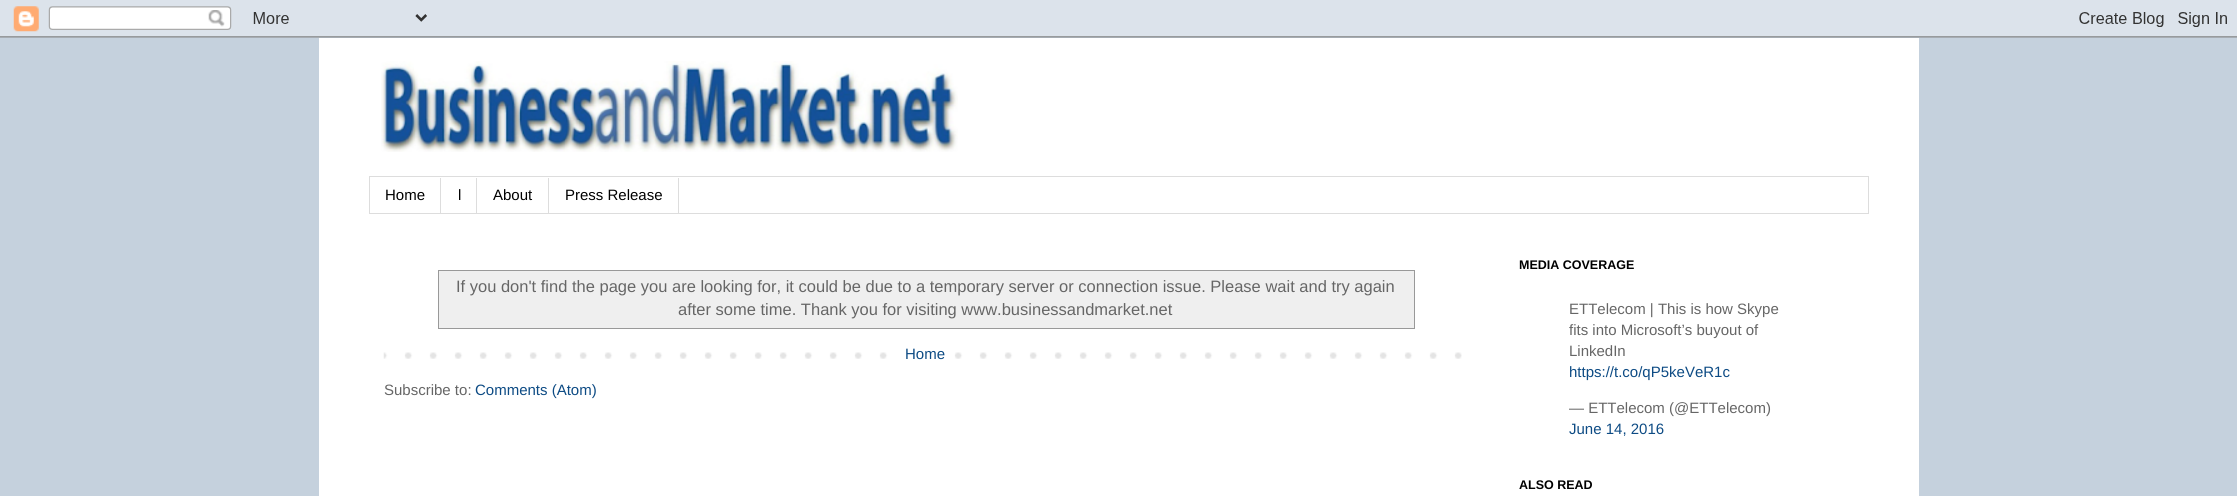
import math
import cairo



def draw_image(context, path, x, y, w, h):
    context.save()
    context.set_source_surface(cairo.ImageSurface.create_from_png(path), x, y)
    context.rectangle(x, y, w, h)
    context.fill()
    context.restore()


def draw(context):
    context.set_source_rgb(197 / 255, 209 / 255, 221 / 255)
    context.paint()
    draw_image(context, "images/1.png", 0, 0, 2237, 38)
    context.set_source_rgb(1, 1, 1)
    context.rectangle(319, 38, 1600, 458)
    context.fill()
    draw_image(context, "images/2.png", 381, 61, 577, 91)
    context.rectangle(369.5, 176.5, 1499, 37)
    context.set_source_rgb(221 / 255, 221 / 255, 221 / 255)
    context.set_line_width(1)
    context.stroke()
    context.rectangle(440, 178, 1, 35)
    context.fill()
    context.rectangle(476, 178, 1, 35)
    context.fill()
    context.rectangle(548, 178, 1, 35)
    context.fill()
    context.rectangle(678, 178, 1, 35)
    context.fill()
    context.rectangle(438.5, 270.5, 976, 58)
    context.set_source_rgb(153 / 255, 153 / 255, 153 / 255)
    context.stroke()
    context.set_source_rgb(239 / 255, 239 / 255, 239 / 255)
    context.rectangle(439, 271, 975, 57)
    context.fill()
    draw_image(context, "images/3.png", 383, 352, 1079, 7)
    context.set_source_rgb(1, 1, 1)
    context.rectangle(904, 352, 33, 7)
    context.fill()
    context.select_font_face("Liberation Sans")
    context.set_font_size(15)
    context.set_source_rgb(0, 0, 0)
    context.move_to(385, 200)
    context.show_text("Home")
    context.move_to(458, 200)
    context.show_text("l")
    context.move_to(493, 200)
    context.show_text("About")
    context.move_to(565, 200)
    context.show_text("Press Release")
    context.set_font_size(16.5)
    context.set_source_rgb(102 / 255, 102 / 255, 102 / 255)
    context.move_to(456, 292)
    context.show_text("If you don't find the page you are looking for, it could be due to a temporary server or connection issue. Please wait and try again")
    context.move_to(678, 315)
    context.show_text("after some time. Thank you for visiting www.businessandmarket.net")
    context.set_font_size(15)
    context.set_source_rgb(13 / 255, 75 / 255, 132 / 255)
    context.move_to(905, 359)
    context.show_text("Home")
    context.set_source_rgb(102 / 255, 102 / 255, 102 / 255)
    context.move_to(384, 395)
    context.show_text("Subscribe to:")
    context.set_source_rgb(13 / 255, 75 / 255, 132 / 255)
    context.move_to(475, 395)
    context.show_text("Comments (Atom)")
    context.select_font_face("Liberation Sans", cairo.FontSlant.NORMAL, cairo.FontWeight.BOLD)
    context.set_font_size(12.5)
    context.set_source_rgb(0, 0, 0)
    context.move_to(1519, 269)
    context.show_text("MEDIA COVERAGE")
    context.select_font_face("Liberation Sans")
    context.set_font_size(15)
    context.set_source_rgb(102 / 255, 102 / 255, 102 / 255)
    context.move_to(1569, 314)
    context.show_text("ETTelecom | This is how Skype")
    context.move_to(1569, 335)
    context.show_text("fits into Microsoft’s buyout of")
    context.move_to(1569, 356)
    context.show_text("LinkedIn")
    context.set_source_rgb(13 / 255, 75 / 255, 132 / 255)
    context.move_to(1569, 377)
    context.show_text("https://t.co/qP5keVeR1c")
    context.set_source_rgb(102 / 255, 102 / 255, 102 / 255)
    context.move_to(1569, 413)
    context.show_text("— ETTelecom (@ETTelecom)")
    context.set_source_rgb(13 / 255, 75 / 255, 132 / 255)
    context.move_to(1569, 434)
    context.show_text("June 14, 2016")
    context.select_font_face("Liberation Sans", cairo.FontSlant.NORMAL, cairo.FontWeight.BOLD)
    context.set_font_size(12.5)
    context.set_source_rgb(0, 0, 0)
    context.move_to(1519, 489)
    context.show_text("ALSO READ")


surface = cairo.ImageSurface(cairo.Format.RGB24, 2237, 496)
context = cairo.Context(surface)
options = cairo.FontOptions()
options.set_hint_metrics(cairo.HintMetrics.OFF)
options.set_hint_style(cairo.HintStyle.NONE)
context.set_font_options(options)
context.set_miter_limit(4)
draw(context)
surface.write_to_png("out.png")
